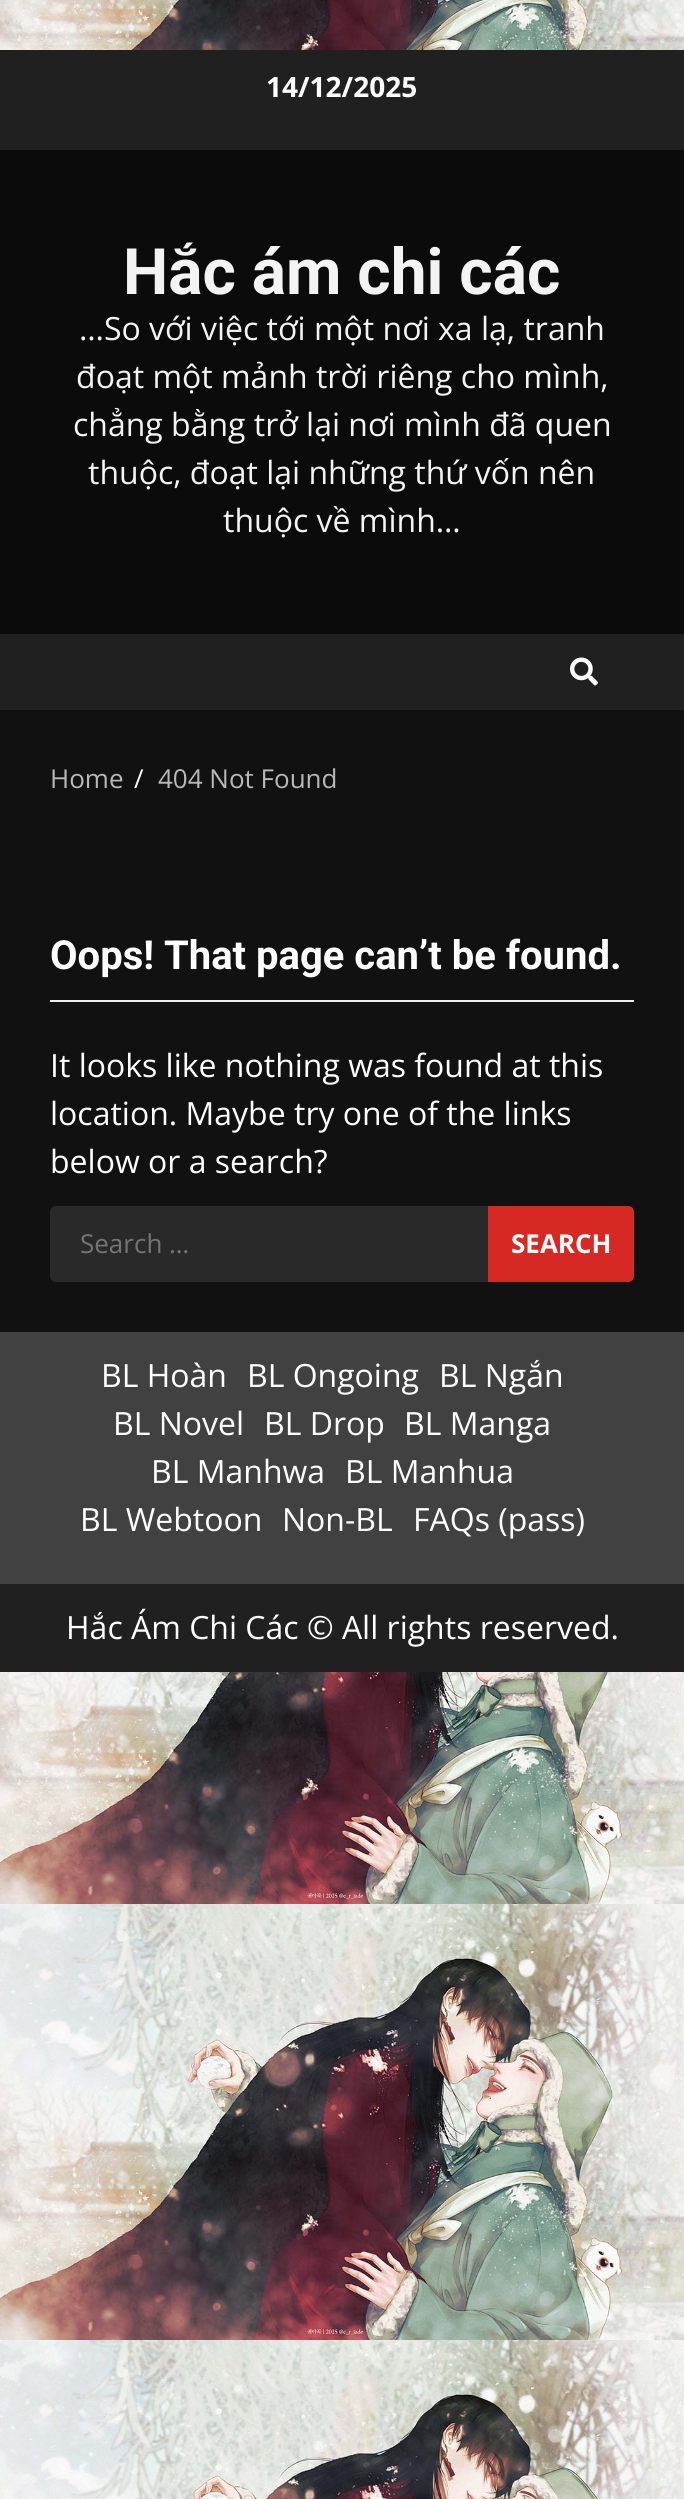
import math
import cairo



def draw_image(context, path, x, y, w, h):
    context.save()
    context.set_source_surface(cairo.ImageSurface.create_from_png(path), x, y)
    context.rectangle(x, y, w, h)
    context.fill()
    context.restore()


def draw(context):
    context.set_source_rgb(1, 1, 1)
    context.paint()
    draw_image(context, "images/1.png", 0, 0, 684, 2499)
    context.set_source_rgb(17 / 255, 17 / 255, 17 / 255)
    context.rectangle(0, 710, 684, 622)
    context.fill()
    context.set_source_rgb(32 / 255, 32 / 255, 32 / 255)
    context.rectangle(0, 50, 684, 100)
    context.fill()
    context.set_source_rgb(11 / 255, 11 / 255, 11 / 255)
    context.rectangle(0, 150, 684, 484)
    context.fill()
    context.set_source_rgb(32 / 255, 32 / 255, 32 / 255)
    context.rectangle(0, 634, 684, 76)
    context.fill()
    draw_image(context, "images/2.png", 570, 657, 28, 29)
    context.set_source_rgb(238 / 255, 238 / 255, 238 / 255)
    context.rectangle(50, 1000, 584, 2)
    context.fill()
    context.set_source_rgb(41 / 255, 41 / 255, 41 / 255)
    context.new_path()
    context.move_to(56, 1206)
    context.line_to(488, 1206)
    context.line_to(488, 1282)
    context.line_to(56, 1282)
    context.curve_to(52.5, 1282, 50, 1279.5, 50, 1276)
    context.line_to(50, 1212)
    context.curve_to(50, 1208.5, 52.5, 1206, 56, 1206)
    context.close_path()
    context.fill()
    context.set_source_rgb(215 / 255, 41 / 255, 36 / 255)
    context.new_path()
    context.move_to(488, 1206)
    context.line_to(628, 1206)
    context.curve_to(631.5, 1206, 634, 1208.5, 634, 1212)
    context.line_to(634, 1276)
    context.curve_to(634, 1279.5, 631.5, 1282, 628, 1282)
    context.line_to(488, 1282)
    context.close_path()
    context.fill()
    context.set_source_rgb(32 / 255, 32 / 255, 32 / 255)
    context.rectangle(0, 1584, 684, 88)
    context.fill()
    context.set_source_rgb(65 / 255, 65 / 255, 65 / 255)
    context.rectangle(0, 1332, 684, 252)
    context.fill()
    context.select_font_face("Open Sans", cairo.FontSlant.NORMAL, cairo.FontWeight.BOLD)
    context.set_font_size(28)
    context.set_source_rgb(1, 1, 1)
    context.move_to(266, 97)
    context.show_text("14/12/2025")
    context.select_font_face("Roboto", cairo.FontSlant.NORMAL, cairo.FontWeight.BOLD)
    context.set_font_size(64)
    context.set_source_rgb(243 / 255, 243 / 255, 243 / 255)
    context.move_to(123, 294)
    context.show_text("Hắc ám chi các")
    context.select_font_face("Open Sans")
    context.set_font_size(32)
    context.move_to(79, 340)
    context.show_text("…So với việc tới một nơi xa lạ, tranh")
    context.move_to(76, 388)
    context.show_text("đoạt một mảnh trời riêng cho mình,")
    context.move_to(73, 436)
    context.show_text("chẳng bằng trở lại nơi mình đã quen")
    context.move_to(88, 484)
    context.show_text("thuộc, đoạt lại những thứ vốn nên")
    context.move_to(223, 532)
    context.show_text("thuộc về mình…")
    context.set_font_size(26)
    context.set_source_rgb(184 / 255, 184 / 255, 184 / 255)
    context.move_to(50, 788)
    context.show_text("Home")
    context.set_source_rgb(1, 1, 1)
    context.move_to(134, 788)
    context.show_text("/")
    context.set_source_rgb(184 / 255, 184 / 255, 184 / 255)
    context.move_to(158, 788)
    context.show_text("404 Not Found")
    context.select_font_face("Roboto", cairo.FontSlant.NORMAL, cairo.FontWeight.BOLD)
    context.set_font_size(40)
    context.set_source_rgb(1, 1, 1)
    context.move_to(50, 969)
    context.show_text("Oops! That page can’t be found.")
    context.select_font_face("Open Sans")
    context.set_font_size(32)
    context.move_to(50, 1077)
    context.show_text("It looks like nothing was found at this")
    context.move_to(50, 1125)
    context.show_text("location. Maybe try one of the links")
    context.move_to(50, 1173)
    context.show_text("below or a search?")
    context.set_font_size(26)
    context.set_source_rgb(117 / 255, 117 / 255, 117 / 255)
    context.move_to(80, 1253)
    context.show_text("Search …")
    context.select_font_face("Open Sans", cairo.FontSlant.NORMAL, cairo.FontWeight.BOLD)
    context.set_source_rgb(1, 1, 1)
    context.move_to(511, 1253)
    context.show_text("SEARCH")
    context.select_font_face("Open Sans")
    context.set_font_size(32)
    context.move_to(101, 1387)
    context.show_text("BL Hoàn")
    context.move_to(247, 1387)
    context.show_text("BL Ongoing")
    context.move_to(439, 1387)
    context.show_text("BL Ngắn")
    context.move_to(113, 1435)
    context.show_text("BL Novel")
    context.move_to(264, 1435)
    context.show_text("BL Drop")
    context.move_to(404, 1435)
    context.show_text("BL Manga")
    context.move_to(151, 1483)
    context.show_text("BL Manhwa")
    context.move_to(345, 1483)
    context.show_text("BL Manhua")
    context.move_to(80, 1531)
    context.show_text("BL Webtoon")
    context.move_to(282, 1531)
    context.show_text("Non-BL")
    context.move_to(413, 1531)
    context.show_text("FAQs (pass)")
    context.move_to(66, 1639)
    context.show_text("Hắc Ám Chi Các © All rights reserved.")


surface = cairo.ImageSurface(cairo.Format.RGB24, 684, 2499)
context = cairo.Context(surface)
options = cairo.FontOptions()
options.set_hint_metrics(cairo.HintMetrics.OFF)
options.set_hint_style(cairo.HintStyle.NONE)
context.set_font_options(options)
context.set_miter_limit(4)
draw(context)
surface.write_to_png("out.png")
